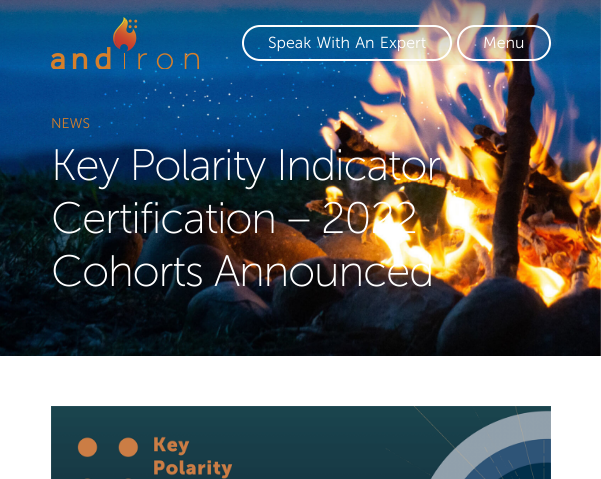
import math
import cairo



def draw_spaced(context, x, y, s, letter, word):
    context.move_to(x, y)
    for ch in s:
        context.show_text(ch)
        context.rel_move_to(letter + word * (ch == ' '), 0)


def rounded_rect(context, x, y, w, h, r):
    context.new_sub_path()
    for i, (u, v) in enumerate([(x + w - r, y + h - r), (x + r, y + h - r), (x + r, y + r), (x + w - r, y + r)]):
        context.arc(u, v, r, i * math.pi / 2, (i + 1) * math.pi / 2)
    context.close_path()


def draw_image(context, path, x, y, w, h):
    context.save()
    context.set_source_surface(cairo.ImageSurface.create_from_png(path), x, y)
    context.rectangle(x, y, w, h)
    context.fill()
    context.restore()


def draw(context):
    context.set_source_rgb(1, 1, 1)
    context.paint()
    draw_image(context, "images/2.png", 0, 0, 601, 356)
    gradient = cairo.LinearGradient(301, 0, 301, 69)
    gradient.add_color_stop_rgba(0, 0, 0, 0, 0.35)
    gradient.add_color_stop_rgba(1, 0, 0, 0, 0)
    context.set_source(gradient)
    context.rectangle(0, 0, 601, 65)
    context.fill()
    draw_image(context, "images/1.png", 51, 17, 148, 52)
    rounded_rect(context, 243, 26, 208, 34, 17)
    context.set_source_rgb(1, 1, 1)
    context.stroke()
    rounded_rect(context, 458, 26, 92, 34, 17)
    context.stroke()
    draw_image(context, "images/3.png", 51, 406, 500, 73)
    context.select_font_face("Museo Sans Light")
    context.set_font_size(16)
    draw_spaced(context, 268, 48, "Speak With An Expert", 0, 1)
    context.move_to(483, 48)
    context.show_text("Menu")
    context.set_font_size(14)
    context.set_source_rgb(213 / 255, 127 / 255, 43 / 255)
    context.move_to(51, 128)
    context.show_text("NEWS")
    context.select_font_face("Museo Sans ExtraLight")
    context.set_font_size(44)
    context.set_source_rgb(1, 1, 1)
    draw_spaced(context, 51, 180, "Key Polarity Indicator", -1.25, 0)
    draw_spaced(context, 51, 233, "Certification – 2022", -1.25, 0)
    draw_spaced(context, 51, 286, "Cohorts Announced", -1.25, 0)


surface = cairo.ImageSurface(cairo.Format.RGB24, 601, 479)
context = cairo.Context(surface)
options = cairo.FontOptions()
options.set_hint_metrics(cairo.HintMetrics.OFF)
options.set_hint_style(cairo.HintStyle.NONE)
context.set_font_options(options)
context.set_miter_limit(4)
draw(context)
surface.write_to_png("out.png")
